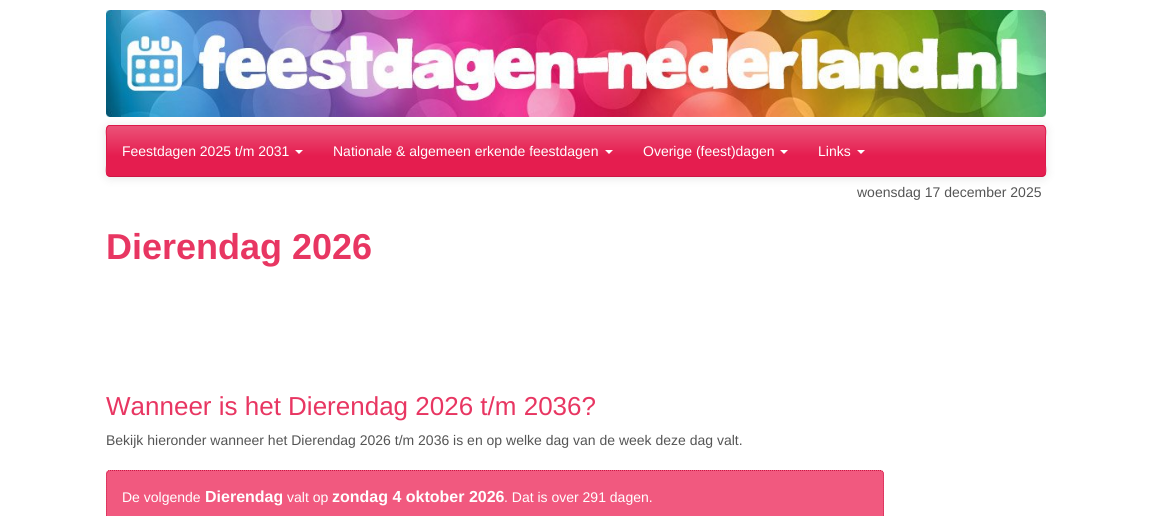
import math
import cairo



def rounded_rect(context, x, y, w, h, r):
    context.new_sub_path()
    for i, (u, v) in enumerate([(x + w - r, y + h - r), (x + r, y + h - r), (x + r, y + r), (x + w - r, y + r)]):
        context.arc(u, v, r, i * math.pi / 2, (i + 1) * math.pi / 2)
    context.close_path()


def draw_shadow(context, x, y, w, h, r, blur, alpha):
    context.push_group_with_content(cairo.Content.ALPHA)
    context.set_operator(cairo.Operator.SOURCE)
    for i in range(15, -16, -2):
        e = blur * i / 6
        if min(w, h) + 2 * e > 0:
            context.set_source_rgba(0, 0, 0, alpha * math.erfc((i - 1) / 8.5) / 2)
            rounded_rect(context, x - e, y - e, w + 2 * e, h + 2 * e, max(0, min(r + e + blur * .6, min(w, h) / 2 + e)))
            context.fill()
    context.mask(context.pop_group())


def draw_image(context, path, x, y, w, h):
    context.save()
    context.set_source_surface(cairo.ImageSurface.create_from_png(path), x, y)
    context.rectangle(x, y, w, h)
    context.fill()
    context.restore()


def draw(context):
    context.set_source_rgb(1, 1, 1)
    context.paint()
    draw_image(context, "images/1.png", 106, 10, 940, 107)
    context.set_source_rgb(0, 0, 0)
    draw_shadow(context, 106, 126, 940, 52, 4, 5, 0.1)
    context.set_source_rgb(235 / 255, 83 / 255, 122 / 255)
    rounded_rect(context, 106, 125, 940, 52, 4)
    context.fill()
    context.save()
    rounded_rect(context, 106, 125, 940, 52, 4)
    context.clip()
    gradient = cairo.LinearGradient(576, 126, 576, 176)
    gradient.add_color_stop_rgba(0, 235 / 255, 82 / 255, 120 / 255, 1)
    gradient.add_color_stop_rgba(0.6, 229 / 255, 29 / 255, 79 / 255, 1)
    gradient.add_color_stop_rgba(1, 229 / 255, 29 / 255, 79 / 255, 1)
    context.set_source(gradient)
    context.rectangle(107, 126, 938, 50)
    context.fill()
    context.restore()
    context.new_path()
    context.move_to(1044.5, 175.5)
    context.line_to(1042, 176.5)
    context.line_to(110, 176.5)
    context.line_to(107.5, 175.5)
    context.set_source_rgb(204 / 255, 23 / 255, 68 / 255)
    context.set_line_width(1)
    context.stroke()
    context.new_path()
    context.move_to(107.5, 175.5)
    context.curve_to(105.5, 173.5, 106.5, 167, 106.5, 165.5)
    context.line_to(106.5, 136.5)
    context.curve_to(106.5, 134, 105, 126, 109.5, 125.5)
    context.line_to(1042.5, 125.5)
    context.curve_to(1047, 126, 1045.5, 134, 1045.5, 136.5)
    context.line_to(1045.5, 165.5)
    context.curve_to(1045.5, 167, 1046.5, 173.5, 1044.5, 175.5)
    context.set_source_rgb(220 / 255, 25 / 255, 74 / 255)
    context.stroke()
    context.set_source_rgb(1, 1, 1)
    context.new_path()
    context.move_to(295, 150)
    context.line_to(303, 150)
    context.line_to(299, 154)
    context.close_path()
    context.fill()
    context.new_path()
    context.move_to(605, 150)
    context.line_to(613, 150)
    context.line_to(609, 154)
    context.close_path()
    context.fill()
    context.new_path()
    context.move_to(780, 150)
    context.line_to(788, 150)
    context.line_to(784, 154)
    context.close_path()
    context.fill()
    context.new_path()
    context.move_to(857, 150)
    context.line_to(865, 150)
    context.line_to(861, 154)
    context.close_path()
    context.fill()
    context.set_source_rgb(241 / 255, 89 / 255, 127 / 255)
    rounded_rect(context, 106, 470, 778, 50, 4)
    context.fill()
    context.new_path()
    context.move_to(110, 470.5)
    context.line_to(880, 470.5)
    context.curve_to(882, 470.5, 883.5, 472, 883.5, 474)
    context.line_to(883.5, 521)
    context.curve_to(883.5, 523, 882, 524.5, 880, 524.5)
    context.line_to(110, 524.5)
    context.curve_to(108, 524.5, 106.5, 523, 106.5, 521)
    context.line_to(106.5, 474)
    context.curve_to(106.5, 472, 108, 470.5, 110, 470.5)
    context.close_path()
    context.set_source_rgb(204 / 255, 23 / 255, 68 / 255)
    context.set_dash([1, 1])
    context.stroke()
    context.select_font_face("Liberation Sans")
    context.set_font_size(14)
    context.set_source_rgb(1, 1, 1)
    context.move_to(122, 156)
    context.show_text("Feestdagen 2025 t/m 2031")
    context.move_to(333, 156)
    context.show_text("Nationale & algemeen erkende feestdagen")
    context.move_to(643, 156)
    context.show_text("Overige (feest)dagen")
    context.move_to(818, 156)
    context.show_text("Links")
    context.set_source_rgb(85 / 255, 85 / 255, 85 / 255)
    context.move_to(857, 197)
    context.show_text("woensdag 17 december 2025")
    context.select_font_face("Liberation Sans", cairo.FontSlant.NORMAL, cairo.FontWeight.BOLD)
    context.set_font_size(36)
    context.set_source_rgb(232 / 255, 54 / 255, 98 / 255)
    context.move_to(106, 259)
    context.show_text("Dierendag 2026")
    context.select_font_face("Liberation Sans")
    context.set_font_size(26)
    context.move_to(106, 415)
    context.show_text("Wanneer is het Dierendag 2026 t/m 2036?")
    context.set_font_size(14)
    context.set_source_rgb(85 / 255, 85 / 255, 85 / 255)
    context.move_to(106, 445)
    context.show_text("Bekijk hieronder wanneer het Dierendag 2026 t/m 2036 is en op welke dag van de week deze dag valt.")
    context.set_source_rgb(1, 1, 1)
    context.move_to(122, 502)
    context.show_text("De volgende")
    context.select_font_face("Liberation Sans", cairo.FontSlant.NORMAL, cairo.FontWeight.BOLD)
    context.set_font_size(16)
    context.move_to(205, 502)
    context.show_text("Dierendag")
    context.select_font_face("Liberation Sans")
    context.set_font_size(14)
    context.move_to(287, 502)
    context.show_text("valt op")
    context.select_font_face("Liberation Sans", cairo.FontSlant.NORMAL, cairo.FontWeight.BOLD)
    context.set_font_size(16)
    context.move_to(332, 502)
    context.show_text("zondag 4 oktober 2026")
    context.select_font_face("Liberation Sans")
    context.set_font_size(14)
    context.move_to(504, 502)
    context.show_text(". Dat is over 291 dagen.")


surface = cairo.ImageSurface(cairo.Format.RGB24, 1152, 516)
context = cairo.Context(surface)
options = cairo.FontOptions()
options.set_hint_metrics(cairo.HintMetrics.OFF)
options.set_hint_style(cairo.HintStyle.NONE)
context.set_font_options(options)
context.set_miter_limit(4)
draw(context)
surface.write_to_png("out.png")
